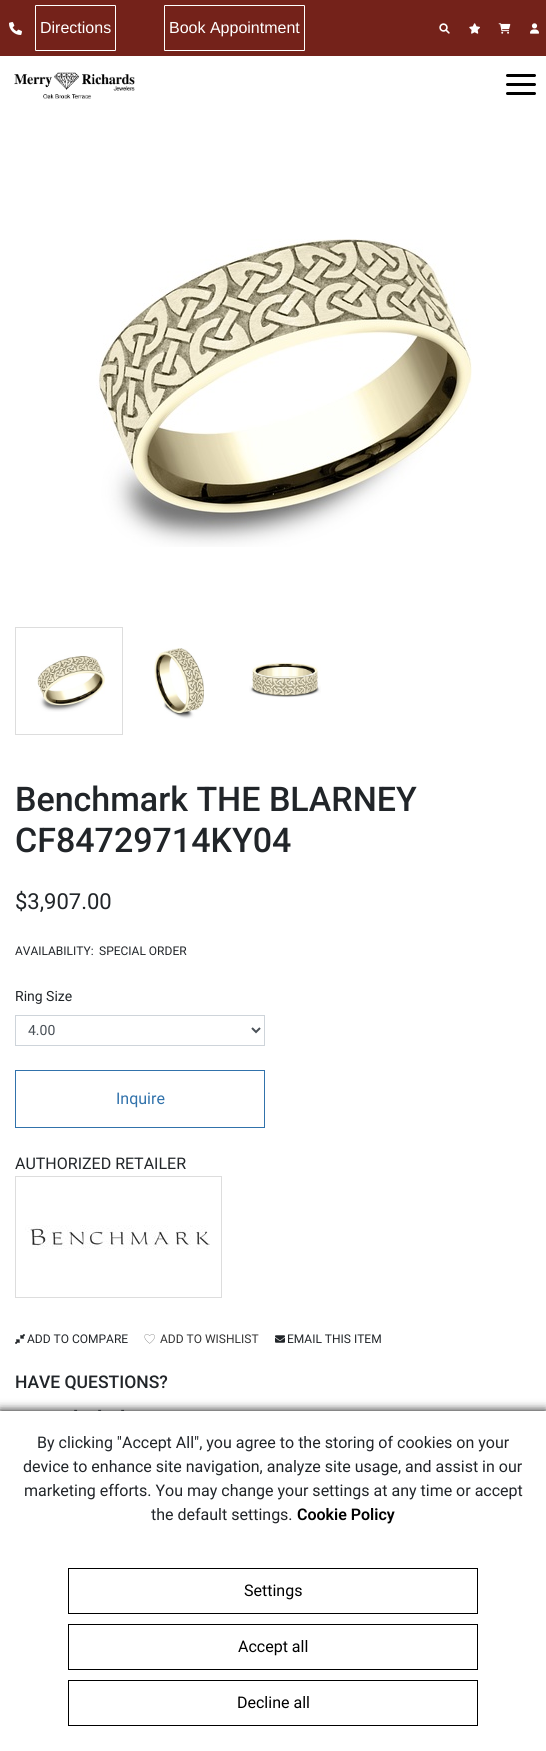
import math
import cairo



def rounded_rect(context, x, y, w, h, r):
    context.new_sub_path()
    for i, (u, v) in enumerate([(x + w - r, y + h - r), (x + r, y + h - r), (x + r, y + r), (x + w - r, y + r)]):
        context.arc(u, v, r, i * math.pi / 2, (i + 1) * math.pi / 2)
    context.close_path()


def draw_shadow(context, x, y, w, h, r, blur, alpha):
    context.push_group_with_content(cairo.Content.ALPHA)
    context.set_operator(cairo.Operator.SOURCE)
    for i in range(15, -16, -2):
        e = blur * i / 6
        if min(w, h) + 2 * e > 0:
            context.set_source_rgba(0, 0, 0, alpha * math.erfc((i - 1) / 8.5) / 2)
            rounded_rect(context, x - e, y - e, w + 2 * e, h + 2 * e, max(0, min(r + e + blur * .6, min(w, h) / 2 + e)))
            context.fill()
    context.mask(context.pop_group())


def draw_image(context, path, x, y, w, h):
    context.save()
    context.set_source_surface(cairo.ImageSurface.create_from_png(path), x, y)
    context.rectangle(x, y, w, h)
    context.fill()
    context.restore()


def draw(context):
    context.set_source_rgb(1, 1, 1)
    context.paint()
    context.set_source_rgb(116 / 255, 34 / 255, 26 / 255)
    context.rectangle(0, 0, 546, 56)
    context.fill()
    draw_image(context, "images/1.png", 9, 22, 13, 13)
    rounded_rect(context, 35.5, 5.5, 80, 45, 0.5)
    context.set_source_rgb(1, 1, 1)
    context.set_line_width(1)
    context.stroke()
    rounded_rect(context, 164.5, 5.5, 140, 45, 0.5)
    context.stroke()
    draw_image(context, "images/2.png", 439, 23, 11, 11)
    draw_image(context, "images/3.png", 469, 23, 11, 11)
    draw_image(context, "images/4.png", 498, 23, 13, 11)
    draw_image(context, "images/5.png", 530, 23, 9, 11)
    draw_image(context, "images/6.png", 14, 72, 121, 27)
    context.set_source_rgb(0, 0, 0)
    rounded_rect(context, 506, 74, 30, 3, 1.5)
    context.fill()
    rounded_rect(context, 506, 83, 30, 3, 1.5)
    context.fill()
    rounded_rect(context, 506, 92, 30, 3, 1.5)
    context.fill()
    draw_image(context, "images/7.png", 96, 239, 376, 308)
    context.rectangle(15.5, 627.5, 107, 107)
    context.set_source_rgb(221 / 255, 221 / 255, 221 / 255)
    context.stroke()
    draw_image(context, "images/8.png", 37, 655, 68, 57)
    draw_image(context, "images/9.png", 154, 648, 50, 71)
    draw_image(context, "images/10.png", 249, 662, 72, 36)
    context.rectangle(15.5, 1015.5, 249, 30)
    context.set_source_rgb(206 / 255, 212 / 255, 218 / 255)
    context.stroke()
    context.new_path()
    context.move_to(252, 1028)
    context.line_to(256, 1032)
    context.line_to(260, 1028)
    context.set_source_rgb(73 / 255, 80 / 255, 87 / 255)
    context.set_line_width(2)
    context.stroke()
    context.rectangle(15.5, 1070.5, 249, 57)
    context.set_source_rgb(49 / 255, 114 / 255, 171 / 255)
    context.set_line_width(1)
    context.stroke()
    context.rectangle(15.5, 1176.5, 206, 121)
    context.set_source_rgb(221 / 255, 221 / 255, 221 / 255)
    context.stroke()
    draw_image(context, "images/11.png", 25, 1225, 185, 24)
    draw_image(context, "images/12.png", 15, 1334, 10, 10)
    draw_image(context, "images/13.png", 144, 1334, 11, 10)
    draw_image(context, "images/14.png", 275, 1335, 10, 8)
    context.set_source_rgb(0, 0, 0)
    draw_shadow(context, 0, 1411, 546, 340, 0, 5, 1)
    context.set_source_rgb(1, 1, 1)
    context.rectangle(0, 1411, 546, 340)
    context.fill()
    context.rectangle(68.5, 1568.5, 409, 45)
    context.set_source_rgb(0, 0, 0)
    context.stroke()
    context.rectangle(68.5, 1624.5, 409, 45)
    context.stroke()
    context.rectangle(68.5, 1680.5, 409, 45)
    context.stroke()
    context.select_font_face("Liberation Sans")
    context.set_font_size(16)
    context.set_source_rgb(1, 1, 1)
    context.move_to(40, 33)
    context.show_text("Directions")
    context.move_to(169, 33)
    context.show_text("Book Appointment")
    context.select_font_face("Roboto Medium")
    context.set_font_size(34)
    context.set_source_rgb(33 / 255, 37 / 255, 41 / 255)
    context.move_to(15, 811)
    context.show_text("Benchmark THE BLARNEY")
    context.move_to(15, 852)
    context.show_text("CF84729714KY04")
    context.select_font_face("Roboto")
    context.set_font_size(22)
    context.move_to(15, 909)
    context.show_text("$3,907.00")
    context.set_font_size(12)
    context.move_to(15, 955)
    context.show_text("AVAILABILITY:")
    context.move_to(99, 955)
    context.show_text("SPECIAL ORDER")
    context.set_font_size(14)
    context.move_to(15, 1001)
    context.show_text("Ring Size")
    context.set_source_rgb(73 / 255, 80 / 255, 87 / 255)
    context.move_to(28, 1035)
    context.show_text("4.00")
    context.set_font_size(16)
    context.set_source_rgb(49 / 255, 114 / 255, 171 / 255)
    context.move_to(116, 1104)
    context.show_text("Inquire")
    context.set_source_rgb(33 / 255, 37 / 255, 41 / 255)
    context.move_to(15, 1169)
    context.show_text("AUTHORIZED RETAILER")
    context.set_font_size(12)
    context.move_to(27, 1343)
    context.show_text("ADD TO COMPARE")
    context.set_source_rgb(51 / 255, 51 / 255, 51 / 255)
    context.move_to(160, 1343)
    context.show_text("ADD TO WISHLIST")
    context.set_source_rgb(33 / 255, 37 / 255, 41 / 255)
    context.move_to(287, 1343)
    context.show_text("EMAIL THIS ITEM")
    context.select_font_face("Roboto Medium")
    context.set_font_size(17.5)
    context.move_to(15, 1388)
    context.show_text("HAVE QUESTIONS?")
    context.select_font_face("Roboto")
    context.set_font_size(12)
    context.move_to(74, 1414)
    context.show_text("-")
    context.move_to(98, 1414)
    context.show_text("-")
    context.move_to(121, 1414)
    context.show_text("-")
    context.set_font_size(16)
    context.move_to(37, 1448)
    context.show_text("By clicking \"Accept All\", you agree to the storing of cookies on your")
    context.move_to(23, 1472)
    context.show_text("device to enhance site navigation, analyze site usage, and assist in our")
    context.move_to(24, 1496)
    context.show_text("marketing efforts. You may change your settings at any time or accept")
    context.move_to(151, 1520)
    context.show_text("the default settings.")
    context.select_font_face("Roboto SemiBold")
    context.set_source_rgb(0, 0, 0)
    context.move_to(297, 1520)
    context.show_text("Cookie Policy")
    context.select_font_face("Roboto")
    context.move_to(244, 1596)
    context.show_text("Settings")
    context.move_to(238, 1652)
    context.show_text("Accept all")
    context.move_to(237, 1708)
    context.show_text("Decline all")


surface = cairo.ImageSurface(cairo.Format.RGB24, 546, 1751)
context = cairo.Context(surface)
options = cairo.FontOptions()
options.set_hint_metrics(cairo.HintMetrics.OFF)
options.set_hint_style(cairo.HintStyle.NONE)
context.set_font_options(options)
context.set_miter_limit(4)
draw(context)
surface.write_to_png("out.png")
